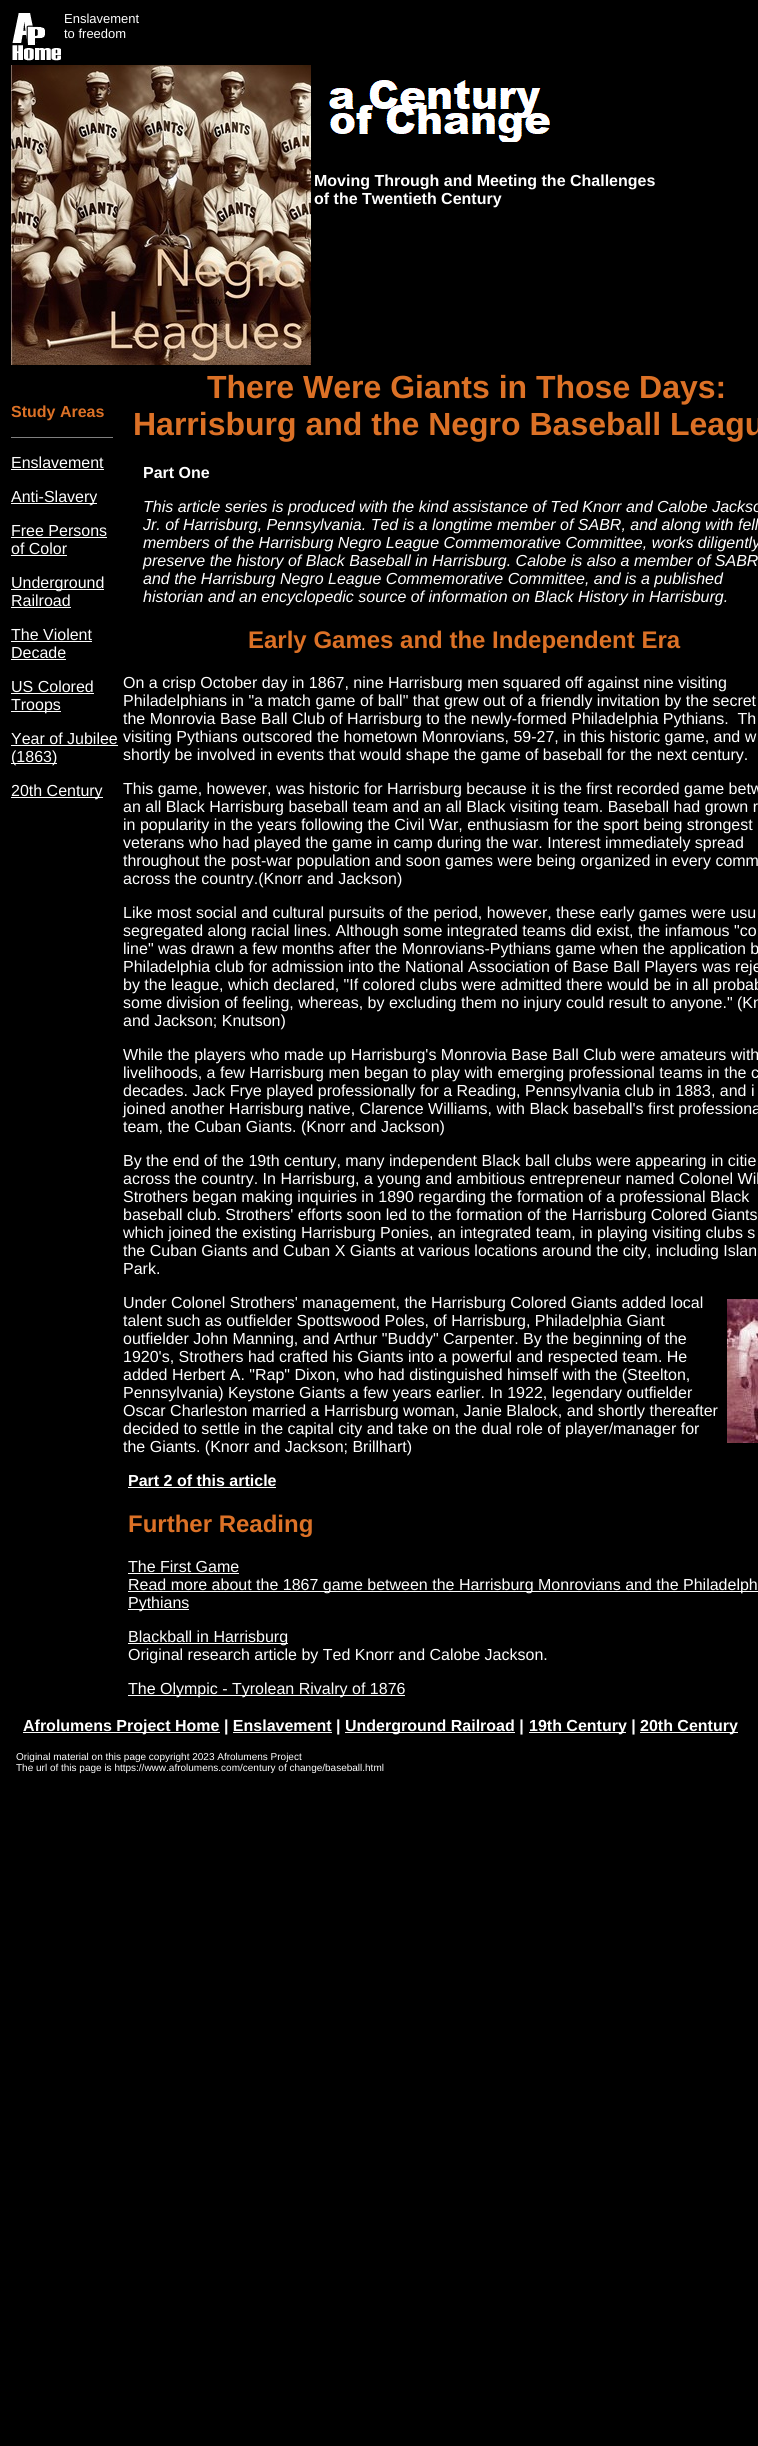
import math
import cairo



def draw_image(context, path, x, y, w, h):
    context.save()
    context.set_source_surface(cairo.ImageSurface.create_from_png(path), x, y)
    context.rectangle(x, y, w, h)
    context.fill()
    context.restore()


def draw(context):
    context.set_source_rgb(0, 0, 0)
    context.paint()
    draw_image(context, "images/1.png", 12, 13, 49, 48)
    draw_image(context, "images/2.png", 11, 65, 300, 300)
    draw_image(context, "images/3.png", 329, 80, 221, 62)
    context.set_source_rgb(128 / 255, 128 / 255, 128 / 255)
    context.rectangle(11, 437, 102, 1)
    context.fill()
    context.set_source_rgb(1, 1, 1)
    context.rectangle(11, 469, 93, 1)
    context.fill()
    context.rectangle(11, 503, 86, 1)
    context.fill()
    context.rectangle(11, 537, 96, 1)
    context.fill()
    context.rectangle(11, 555, 56, 1)
    context.fill()
    context.rectangle(11, 589, 93, 1)
    context.fill()
    context.rectangle(11, 607, 60, 1)
    context.fill()
    context.rectangle(11, 641, 81, 1)
    context.fill()
    context.rectangle(11, 659, 55, 1)
    context.fill()
    context.rectangle(11, 693, 83, 1)
    context.fill()
    context.rectangle(11, 711, 50, 1)
    context.fill()
    context.rectangle(11, 745, 107, 1)
    context.fill()
    context.rectangle(11, 763, 46, 1)
    context.fill()
    context.rectangle(11, 797, 92, 1)
    context.fill()
    draw_image(context, "images/4.png", 727, 1299, 31, 144)
    context.rectangle(128, 1487, 148, 1)
    context.fill()
    context.rectangle(128, 1573, 111, 1)
    context.fill()
    context.rectangle(128, 1591, 630, 1)
    context.fill()
    context.rectangle(128, 1609, 61, 1)
    context.fill()
    context.rectangle(128, 1643, 160, 1)
    context.fill()
    context.rectangle(128, 1695, 277, 1)
    context.fill()
    context.rectangle(23, 1732, 197, 1)
    context.fill()
    context.rectangle(233, 1732, 99, 1)
    context.fill()
    context.rectangle(345, 1732, 170, 1)
    context.fill()
    context.rectangle(529, 1732, 97, 1)
    context.fill()
    context.rectangle(640, 1732, 98, 1)
    context.fill()
    context.select_font_face("Liberation Sans")
    context.set_font_size(13)
    context.move_to(64, 23)
    context.show_text("Enslavement")
    context.move_to(64, 38)
    context.show_text("to freedom")
    context.select_font_face("Liberation Sans", cairo.FontSlant.NORMAL, cairo.FontWeight.BOLD)
    context.set_font_size(16)
    context.move_to(314, 186)
    context.show_text("Moving Through and Meeting the Challenges")
    context.move_to(314, 204)
    context.show_text("of the Twentieth Century")
    context.set_source_rgb(220 / 255, 113 / 255, 38 / 255)
    context.move_to(11, 417)
    context.show_text("Study Areas")
    context.select_font_face("Liberation Sans")
    context.set_source_rgb(1, 1, 1)
    context.move_to(11, 468)
    context.show_text("Enslavement")
    context.move_to(11, 502)
    context.show_text("Anti-Slavery")
    context.move_to(11, 536)
    context.show_text("Free Persons")
    context.move_to(11, 554)
    context.show_text("of Color")
    context.move_to(11, 588)
    context.show_text("Underground")
    context.move_to(11, 606)
    context.show_text("Railroad")
    context.move_to(11, 640)
    context.show_text("The Violent")
    context.move_to(11, 658)
    context.show_text("Decade")
    context.move_to(11, 692)
    context.show_text("US Colored")
    context.move_to(11, 710)
    context.show_text("Troops")
    context.move_to(11, 744)
    context.show_text("Year of Jubilee")
    context.move_to(11, 762)
    context.show_text("(1863)")
    context.move_to(11, 796)
    context.show_text("20th Century")
    context.select_font_face("Liberation Sans", cairo.FontSlant.NORMAL, cairo.FontWeight.BOLD)
    context.set_font_size(32)
    context.set_source_rgb(220 / 255, 113 / 255, 38 / 255)
    context.move_to(207, 398)
    context.show_text("There Were Giants in Those Days:")
    context.move_to(133, 435)
    context.show_text("Harrisburg and the Negro Baseball Leagu")
    context.set_font_size(16)
    context.set_source_rgb(1, 1, 1)
    context.move_to(143, 478)
    context.show_text("Part One")
    context.select_font_face("Liberation Sans", cairo.FontSlant.ITALIC)
    context.move_to(143, 512)
    context.show_text("This article series is produced with the kind assistance of Ted Knorr and Calobe Jackso")
    context.move_to(143, 530)
    context.show_text("Jr. of Harrisburg, Pennsylvania. Ted is a longtime member of SABR, and along with fell")
    context.move_to(143, 548)
    context.show_text("members of the Harrisburg Negro League Commemorative Committee, works diligently")
    context.move_to(143, 566)
    context.show_text("preserve the history of Black Baseball in Harrisburg. Calobe is also a member of SABR")
    context.move_to(143, 584)
    context.show_text("and the Harrisburg Negro League Commemorative Committee, and is a published")
    context.move_to(143, 602)
    context.show_text("historian and an encyclopedic source of information on Black History in Harrisburg.")
    context.select_font_face("Liberation Sans", cairo.FontSlant.NORMAL, cairo.FontWeight.BOLD)
    context.set_font_size(24)
    context.set_source_rgb(220 / 255, 113 / 255, 38 / 255)
    context.move_to(248, 648)
    context.show_text("Early Games and the Independent Era")
    context.select_font_face("Liberation Sans")
    context.set_font_size(16)
    context.set_source_rgb(1, 1, 1)
    context.move_to(123, 688)
    context.show_text("On a crisp October day in 1867, nine Harrisburg men squared off against nine visiting")
    context.move_to(123, 706)
    context.show_text("Philadelphians in \"a match game of ball\" that grew out of a friendly invitation by the secret")
    context.move_to(123, 724)
    context.show_text("the Monrovia Base Ball Club of Harrisburg to the newly-formed Philadelphia Pythians.  Th")
    context.move_to(123, 742)
    context.show_text("visiting Pythians outscored the hometown Monrovians, 59-27, in this historic game, and w")
    context.move_to(123, 760)
    context.show_text("shortly be involved in events that would shape the game of baseball for the next century.")
    context.move_to(123, 794)
    context.show_text("This game, however, was historic for Harrisburg because it is the first recorded game betw")
    context.move_to(123, 812)
    context.show_text("an all Black Harrisburg baseball team and an all Black visiting team. Baseball had grown r")
    context.move_to(123, 830)
    context.show_text("in popularity in the years following the Civil War, enthusiasm for the sport being strongest")
    context.move_to(123, 848)
    context.show_text("veterans who had played the game in camp during the war. Interest immediately spread")
    context.move_to(123, 866)
    context.show_text("throughout the post-war population and soon games were being organized in every comm")
    context.move_to(123, 884)
    context.show_text("across the country.(Knorr and Jackson)")
    context.move_to(123, 918)
    context.show_text("Like most social and cultural pursuits of the period, however, these early games were usu")
    context.move_to(123, 936)
    context.show_text("segregated along racial lines. Although some integrated teams did exist, the infamous \"co")
    context.move_to(123, 954)
    context.show_text("line\" was drawn a few months after the Monrovians-Pythians game when the application b")
    context.move_to(123, 972)
    context.show_text("Philadelphia club for admission into the National Association of Base Ball Players was reje")
    context.move_to(123, 990)
    context.show_text("by the league, which declared, \"If colored clubs were admitted there would be in all probab")
    context.move_to(123, 1008)
    context.show_text("some division of feeling, whereas, by excluding them no injury could result to anyone.\" (Kn")
    context.move_to(123, 1026)
    context.show_text("and Jackson; Knutson)")
    context.move_to(123, 1060)
    context.show_text("While the players who made up Harrisburg's Monrovia Base Ball Club were amateurs with")
    context.move_to(123, 1078)
    context.show_text("livelihoods, a few Harrisburg men began to play with emerging professional teams in the c")
    context.move_to(123, 1096)
    context.show_text("decades. Jack Frye played professionally for a Reading, Pennsylvania club in 1883, and i")
    context.move_to(123, 1114)
    context.show_text("joined another Harrisburg native, Clarence Williams, with Black baseball's first professiona")
    context.move_to(123, 1132)
    context.show_text("team, the Cuban Giants. (Knorr and Jackson)")
    context.move_to(123, 1166)
    context.show_text("By the end of the 19th century, many independent Black ball clubs were appearing in citie")
    context.move_to(123, 1184)
    context.show_text("across the country. In Harrisburg, a young and ambitious entrepreneur named Colonel Wil")
    context.move_to(123, 1202)
    context.show_text("Strothers began making inquiries in 1890 regarding the formation of a professional Black")
    context.move_to(123, 1220)
    context.show_text("baseball club. Strothers' efforts soon led to the formation of the Harrisburg Colored Giants")
    context.move_to(123, 1238)
    context.show_text("which joined the existing Harrisburg Ponies, an integrated team, in playing visiting clubs s")
    context.move_to(123, 1256)
    context.show_text("the Cuban Giants and Cuban X Giants at various locations around the city, including Islan")
    context.move_to(123, 1274)
    context.show_text("Park.")
    context.move_to(123, 1308)
    context.show_text("Under Colonel Strothers' management, the Harrisburg Colored Giants added local")
    context.move_to(123, 1326)
    context.show_text("talent such as outfielder Spottswood Poles, of Harrisburg, Philadelphia Giant")
    context.move_to(123, 1344)
    context.show_text("outfielder John Manning, and Arthur \"Buddy\" Carpenter. By the beginning of the")
    context.move_to(123, 1362)
    context.show_text("1920's, Strothers had crafted his Giants into a powerful and respected team. He")
    context.move_to(123, 1380)
    context.show_text("added Herbert A. \"Rap\" Dixon, who had distinguished himself with the (Steelton,")
    context.move_to(123, 1398)
    context.show_text("Pennsylvania) Keystone Giants a few years earlier. In 1922, legendary outfielder")
    context.move_to(123, 1416)
    context.show_text("Oscar Charleston married a Harrisburg woman, Janie Blalock, and shortly thereafter")
    context.move_to(123, 1434)
    context.show_text("decided to settle in the capital city and take on the dual role of player/manager for")
    context.move_to(123, 1452)
    context.show_text("the Giants. (Knorr and Jackson; Brillhart)")
    context.select_font_face("Liberation Sans", cairo.FontSlant.NORMAL, cairo.FontWeight.BOLD)
    context.move_to(128, 1486)
    context.show_text("Part 2 of this article")
    context.set_font_size(24)
    context.set_source_rgb(220 / 255, 113 / 255, 38 / 255)
    context.move_to(128, 1532)
    context.show_text("Further Reading")
    context.select_font_face("Liberation Sans")
    context.set_font_size(16)
    context.set_source_rgb(1, 1, 1)
    context.move_to(128, 1572)
    context.show_text("The First Game")
    context.move_to(128, 1590)
    context.show_text("Read more about the 1867 game between the Harrisburg Monrovians and the Philadelph")
    context.move_to(128, 1608)
    context.show_text("Pythians")
    context.move_to(128, 1642)
    context.show_text("Blackball in Harrisburg")
    context.move_to(128, 1660)
    context.show_text("Original research article by Ted Knorr and Calobe Jackson.")
    context.move_to(128, 1694)
    context.show_text("The Olympic - Tyrolean Rivalry of 1876")
    context.select_font_face("Liberation Sans", cairo.FontSlant.NORMAL, cairo.FontWeight.BOLD)
    context.move_to(23, 1731)
    context.show_text("Afrolumens Project Home | Enslavement |")
    context.move_to(345, 1731)
    context.show_text("Underground Railroad |")
    context.move_to(529, 1731)
    context.show_text("19th Century |")
    context.move_to(640, 1731)
    context.show_text("20th Century")
    context.select_font_face("Liberation Sans")
    context.set_font_size(10)
    context.move_to(16, 1760)
    context.show_text("Original material on this page copyright 2023 Afrolumens Project")
    context.move_to(16, 1771)
    context.show_text("The url of this page is https://www.afrolumens.com/century of change/baseball.html")


surface = cairo.ImageSurface(cairo.Format.RGB24, 758, 2446)
context = cairo.Context(surface)
options = cairo.FontOptions()
options.set_hint_metrics(cairo.HintMetrics.OFF)
options.set_hint_style(cairo.HintStyle.NONE)
context.set_font_options(options)
context.set_miter_limit(4)
draw(context)
surface.write_to_png("out.png")
